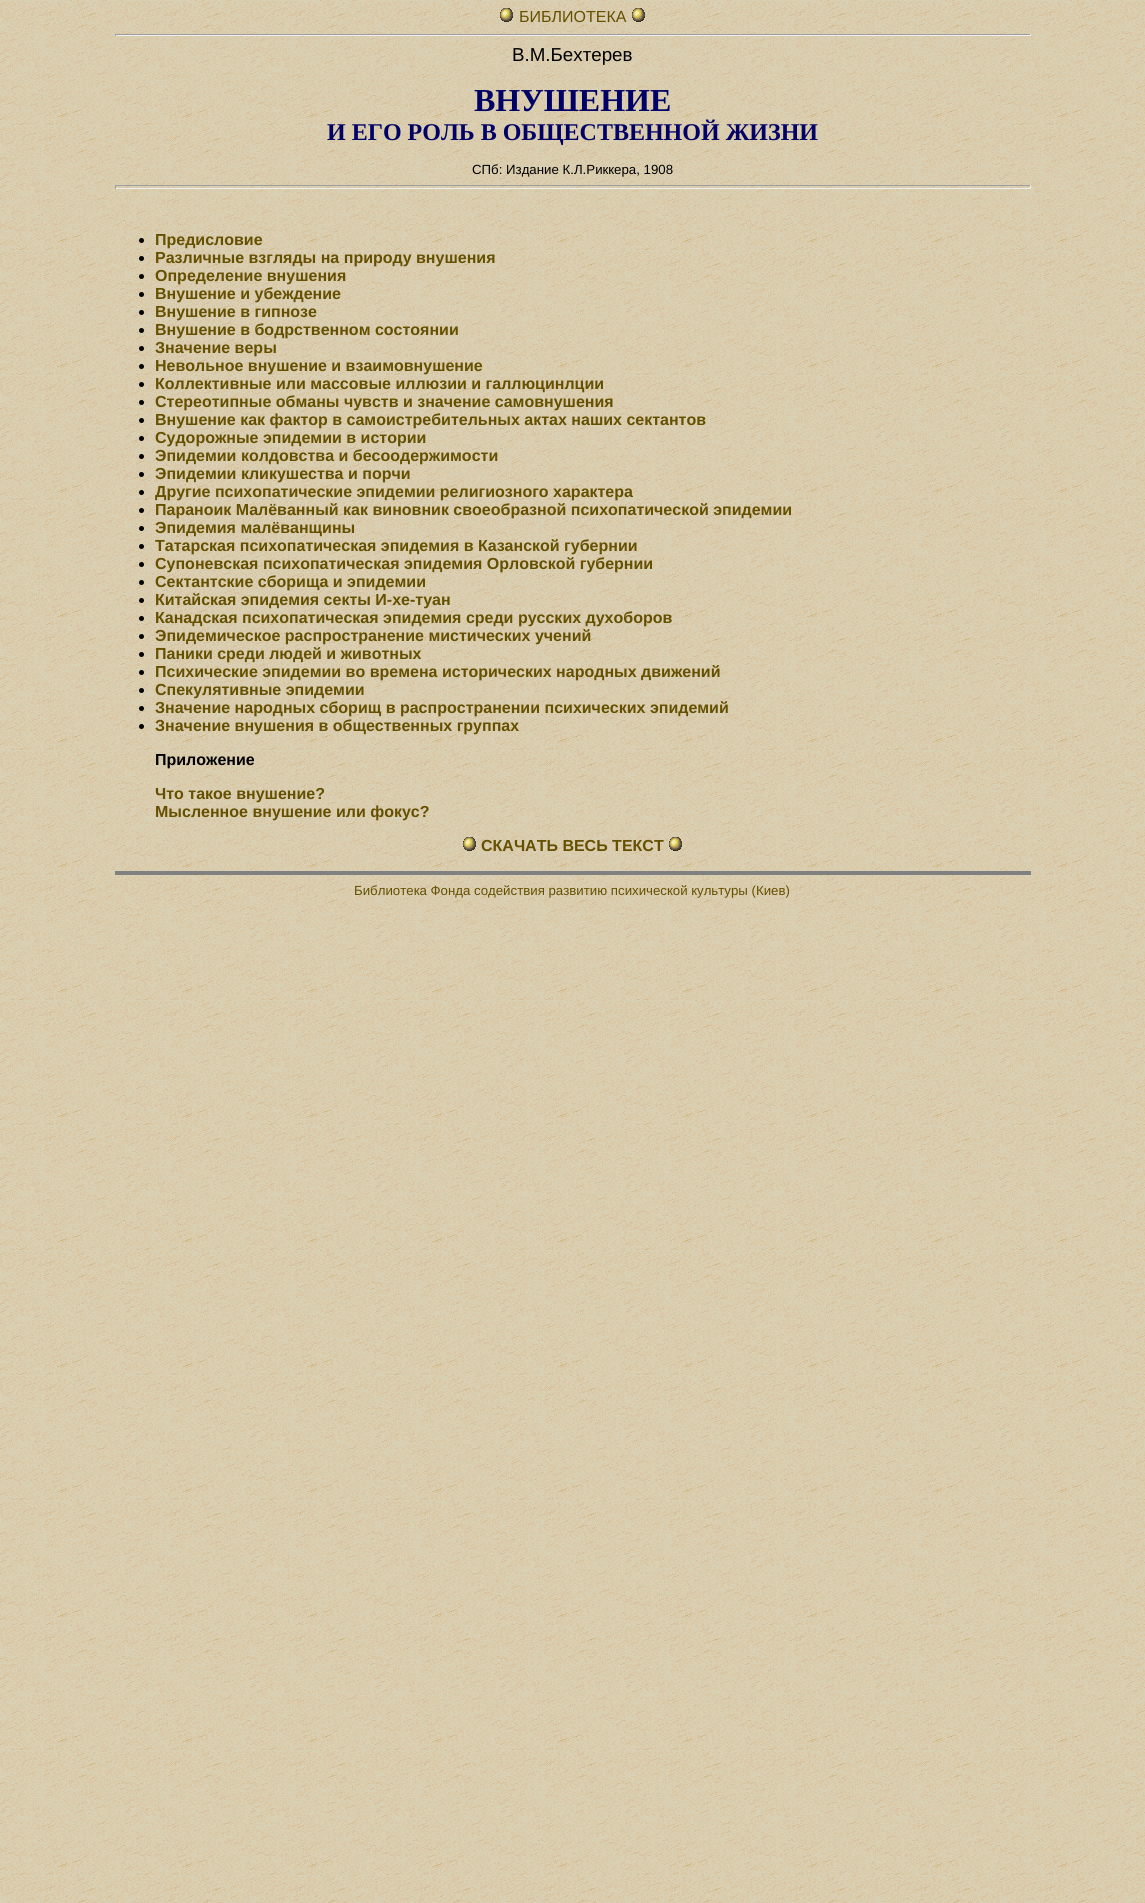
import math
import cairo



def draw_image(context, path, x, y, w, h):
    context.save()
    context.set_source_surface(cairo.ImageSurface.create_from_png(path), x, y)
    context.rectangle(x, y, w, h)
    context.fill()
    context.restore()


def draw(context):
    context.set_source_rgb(1, 1, 1)
    context.paint()
    draw_image(context, "images/1.png", 0, 0, 1145, 1903)
    draw_image(context, "images/2.png", 500, 8, 13, 14)
    draw_image(context, "images/3.png", 632, 8, 13, 14)
    context.set_source_rgb(159 / 255, 159 / 255, 159 / 255)
    context.rectangle(115, 34, 916, 1)
    context.fill()
    context.set_source_rgb(238 / 255, 238 / 255, 238 / 255)
    context.rectangle(1030, 34, 1, 2)
    context.fill()
    context.rectangle(115, 35, 916, 1)
    context.fill()
    context.set_source_rgb(159 / 255, 159 / 255, 159 / 255)
    context.rectangle(115, 34, 1, 2)
    context.fill()
    context.rectangle(115, 185, 916, 1)
    context.fill()
    context.set_source_rgb(238 / 255, 238 / 255, 238 / 255)
    context.rectangle(1030, 185, 1, 4)
    context.fill()
    context.rectangle(115, 188, 916, 1)
    context.fill()
    context.set_source_rgb(159 / 255, 159 / 255, 159 / 255)
    context.rectangle(115, 185, 1, 4)
    context.fill()
    context.set_source_rgb(0, 0, 0)
    context.arc(141.5, 240.5, 2.5, 0, 2 * math.pi)
    context.fill()
    context.arc(141.5, 258.5, 2.5, 0, 2 * math.pi)
    context.fill()
    context.arc(141.5, 276.5, 2.5, 0, 2 * math.pi)
    context.fill()
    context.arc(141.5, 294.5, 2.5, 0, 2 * math.pi)
    context.fill()
    context.arc(141.5, 312.5, 2.5, 0, 2 * math.pi)
    context.fill()
    context.arc(141.5, 330.5, 2.5, 0, 2 * math.pi)
    context.fill()
    context.arc(141.5, 348.5, 2.5, 0, 2 * math.pi)
    context.fill()
    context.arc(141.5, 366.5, 2.5, 0, 2 * math.pi)
    context.fill()
    context.arc(141.5, 384.5, 2.5, 0, 2 * math.pi)
    context.fill()
    context.arc(141.5, 402.5, 2.5, 0, 2 * math.pi)
    context.fill()
    context.arc(141.5, 420.5, 2.5, 0, 2 * math.pi)
    context.fill()
    context.arc(141.5, 438.5, 2.5, 0, 2 * math.pi)
    context.fill()
    context.arc(141.5, 456.5, 2.5, 0, 2 * math.pi)
    context.fill()
    context.arc(141.5, 474.5, 2.5, 0, 2 * math.pi)
    context.fill()
    context.arc(141.5, 492.5, 2.5, 0, 2 * math.pi)
    context.fill()
    context.arc(141.5, 510.5, 2.5, 0, 2 * math.pi)
    context.fill()
    context.arc(141.5, 528.5, 2.5, 0, 2 * math.pi)
    context.fill()
    context.arc(141.5, 546.5, 2.5, 0, 2 * math.pi)
    context.fill()
    context.arc(141.5, 564.5, 2.5, 0, 2 * math.pi)
    context.fill()
    context.arc(141.5, 582.5, 2.5, 0, 2 * math.pi)
    context.fill()
    context.arc(141.5, 600.5, 2.5, 0, 2 * math.pi)
    context.fill()
    context.arc(141.5, 618.5, 2.5, 0, 2 * math.pi)
    context.fill()
    context.arc(141.5, 636.5, 2.5, 0, 2 * math.pi)
    context.fill()
    context.arc(141.5, 654.5, 2.5, 0, 2 * math.pi)
    context.fill()
    context.arc(141.5, 672.5, 2.5, 0, 2 * math.pi)
    context.fill()
    context.arc(141.5, 690.5, 2.5, 0, 2 * math.pi)
    context.fill()
    context.arc(141.5, 708.5, 2.5, 0, 2 * math.pi)
    context.fill()
    context.arc(141.5, 726.5, 2.5, 0, 2 * math.pi)
    context.fill()
    draw_image(context, "images/4.png", 463, 837, 13, 14)
    draw_image(context, "images/5.png", 669, 837, 13, 14)
    context.set_source_rgb(128 / 255, 128 / 255, 128 / 255)
    context.rectangle(115, 871, 916, 4)
    context.fill()
    context.select_font_face("Liberation Sans")
    context.set_font_size(16)
    context.set_source_rgb(100 / 255, 80 / 255, 0)
    context.move_to(519, 22)
    context.show_text("БИБЛИОТЕКА")
    context.set_font_size(18.75)
    context.set_source_rgb(0, 0, 0)
    context.move_to(512, 61)
    context.show_text("В.М.Бехтерев")
    context.select_font_face("Liberation Serif", cairo.FontSlant.NORMAL, cairo.FontWeight.BOLD)
    context.set_font_size(32)
    context.set_source_rgb(0, 0, 102 / 255)
    context.move_to(474, 111)
    context.show_text("ВНУШЕНИЕ")
    context.set_font_size(24)
    context.move_to(327, 140)
    context.show_text("И ЕГО РОЛЬ В ОБЩЕСТВЕННОЙ ЖИЗНИ")
    context.select_font_face("Liberation Sans")
    context.set_font_size(13.25)
    context.set_source_rgb(0, 0, 0)
    context.move_to(472, 174)
    context.show_text("СПб: Издание К.Л.Риккера, 1908")
    context.select_font_face("Liberation Sans", cairo.FontSlant.NORMAL, cairo.FontWeight.BOLD)
    context.set_font_size(16)
    context.set_source_rgb(100 / 255, 80 / 255, 0)
    context.move_to(155, 245)
    context.show_text("Предисловие")
    context.move_to(155, 263)
    context.show_text("Различные взгляды на природу внушения")
    context.move_to(155, 281)
    context.show_text("Определение внушения")
    context.move_to(155, 299)
    context.show_text("Внушение и убеждение")
    context.move_to(155, 317)
    context.show_text("Внушение в гипнозе")
    context.move_to(155, 335)
    context.show_text("Внушение в бодрственном состоянии")
    context.move_to(155, 353)
    context.show_text("Значение веры")
    context.move_to(155, 371)
    context.show_text("Невольное внушение и взаимовнушение")
    context.move_to(155, 389)
    context.show_text("Коллективные или массовые иллюзии и галлюцинлции")
    context.move_to(155, 407)
    context.show_text("Стереотипные обманы чувств и значение самовнушения")
    context.move_to(155, 425)
    context.show_text("Внушение как фактор в самоистребительных актах наших сектантов")
    context.move_to(155, 443)
    context.show_text("Судорожные эпидемии в истории")
    context.move_to(155, 461)
    context.show_text("Эпидемии колдовства и бесоодержимости")
    context.move_to(155, 479)
    context.show_text("Эпидемии кликушества и порчи")
    context.move_to(155, 497)
    context.show_text("Другие психопатические эпидемии религиозного характера")
    context.move_to(155, 515)
    context.show_text("Параноик Малёванный как виновник своеобразной психопатической эпидемии")
    context.move_to(155, 533)
    context.show_text("Эпидемия малёванщины")
    context.move_to(155, 551)
    context.show_text("Татарская психопатическая эпидемия в Казанской губернии")
    context.move_to(155, 569)
    context.show_text("Супоневская психопатическая эпидемия Орловской губернии")
    context.move_to(155, 587)
    context.show_text("Сектантские сборища и эпидемии")
    context.move_to(155, 605)
    context.show_text("Китайская эпидемия секты И-хе-туан")
    context.move_to(155, 623)
    context.show_text("Канадская психопатическая эпидемия среди русских духоборов")
    context.move_to(155, 641)
    context.show_text("Эпидемическое распространение мистических учений")
    context.move_to(155, 659)
    context.show_text("Паники среди людей и животных")
    context.move_to(155, 677)
    context.show_text("Психические эпидемии во времена исторических народных движений")
    context.move_to(155, 695)
    context.show_text("Спекулятивные эпидемии")
    context.move_to(155, 713)
    context.show_text("Значение народных сборищ в распространении психических эпидемий")
    context.move_to(155, 731)
    context.show_text("Значение внушения в общественных группах")
    context.set_source_rgb(0, 0, 0)
    context.move_to(155, 765)
    context.show_text("Приложение")
    context.set_source_rgb(100 / 255, 80 / 255, 0)
    context.move_to(155, 799)
    context.show_text("Что такое внушение?")
    context.move_to(155, 817)
    context.show_text("Мысленное внушение или фокус?")
    context.move_to(481, 851)
    context.show_text("СКАЧАТЬ ВЕСЬ ТЕКСТ")
    context.select_font_face("Liberation Sans")
    context.set_font_size(13.25)
    context.move_to(354, 895)
    context.show_text("Библиотека Фонда содействия развитию психической культуры (Киев)")


surface = cairo.ImageSurface(cairo.Format.RGB24, 1145, 1903)
context = cairo.Context(surface)
options = cairo.FontOptions()
options.set_hint_metrics(cairo.HintMetrics.OFF)
options.set_hint_style(cairo.HintStyle.NONE)
context.set_font_options(options)
context.set_miter_limit(4)
draw(context)
surface.write_to_png("out.png")
